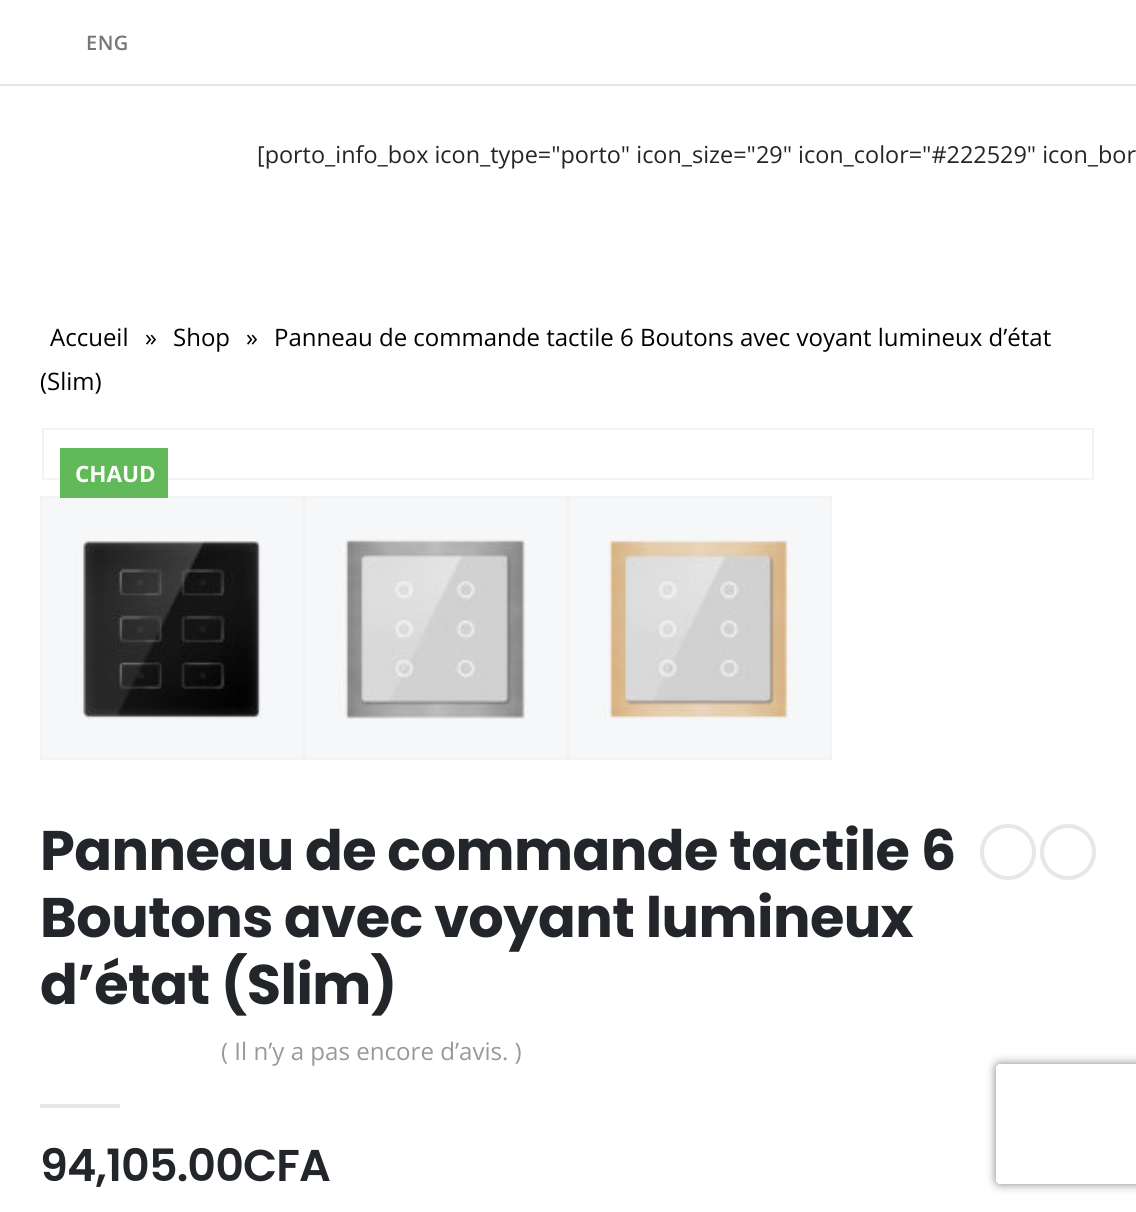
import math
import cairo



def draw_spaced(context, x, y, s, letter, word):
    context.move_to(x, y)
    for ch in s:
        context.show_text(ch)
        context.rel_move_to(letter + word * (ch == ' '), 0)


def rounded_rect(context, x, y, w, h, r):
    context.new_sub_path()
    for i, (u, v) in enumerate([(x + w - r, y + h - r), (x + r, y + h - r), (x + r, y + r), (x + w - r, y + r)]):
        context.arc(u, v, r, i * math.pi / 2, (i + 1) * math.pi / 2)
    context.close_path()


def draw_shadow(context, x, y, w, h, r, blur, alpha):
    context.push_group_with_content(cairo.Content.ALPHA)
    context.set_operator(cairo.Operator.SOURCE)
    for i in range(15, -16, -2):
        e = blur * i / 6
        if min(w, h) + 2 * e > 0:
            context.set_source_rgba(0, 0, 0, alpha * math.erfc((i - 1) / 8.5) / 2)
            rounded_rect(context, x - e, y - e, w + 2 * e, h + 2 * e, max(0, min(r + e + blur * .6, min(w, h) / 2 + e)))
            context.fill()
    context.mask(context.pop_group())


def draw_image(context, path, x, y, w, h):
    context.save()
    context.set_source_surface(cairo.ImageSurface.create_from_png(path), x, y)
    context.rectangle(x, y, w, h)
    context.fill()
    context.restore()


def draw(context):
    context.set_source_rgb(1, 1, 1)
    context.paint()
    context.set_source_rgb(231 / 255, 231 / 255, 231 / 255)
    context.rectangle(0, 84, 1136, 2)
    context.fill()
    context.rectangle(43, 429, 1050, 50)
    context.set_source_rgb(244 / 255, 244 / 255, 244 / 255)
    context.stroke()
    context.rectangle(41, 497, 262, 262)
    context.stroke()
    context.set_source_rgb(98 / 255, 185 / 255, 89 / 255)
    context.rectangle(60, 448, 108, 50)
    context.fill()
    draw_image(context, "images/1.png", 42, 498, 260, 260)
    context.rectangle(305, 497, 262, 262)
    context.set_source_rgb(244 / 255, 244 / 255, 244 / 255)
    context.stroke()
    draw_image(context, "images/2.png", 306, 498, 260, 260)
    context.rectangle(569, 497, 262, 262)
    context.stroke()
    draw_image(context, "images/3.png", 570, 498, 260, 260)
    context.arc(1008, 852, 26, 0, 2 * math.pi)
    context.set_source_rgb(231 / 255, 231 / 255, 231 / 255)
    context.set_line_width(4)
    context.stroke()
    context.arc(1068, 852, 26, 0, 2 * math.pi)
    context.stroke()
    context.rectangle(40, 1104, 80, 4)
    context.fill()
    context.save()
    context.set_fill_rule(cairo.FillRule.EVEN_ODD)
    context.new_path()
    context.move_to(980, 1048)
    context.line_to(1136, 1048)
    context.line_to(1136, 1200)
    context.line_to(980, 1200)
    context.close_path()
    context.move_to(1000, 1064)
    context.line_to(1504, 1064)
    context.curve_to(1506, 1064, 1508, 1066, 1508, 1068)
    context.line_to(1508, 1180)
    context.curve_to(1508, 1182, 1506, 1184, 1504, 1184)
    context.line_to(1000, 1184)
    context.curve_to(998, 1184, 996, 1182, 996, 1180)
    context.line_to(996, 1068)
    context.curve_to(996, 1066, 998, 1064, 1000, 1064)
    context.close_path()
    context.clip()
    context.set_source_rgb(128 / 255, 128 / 255, 128 / 255)
    draw_shadow(context, 996, 1064, 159, 120, 4, 5, 1)
    context.restore()
    context.select_font_face("Open Sans SemiBold")
    context.set_font_size(20)
    context.set_source_rgb(119 / 255, 119 / 255, 119 / 255)
    draw_spaced(context, 86, 50, "ENG", 0.5, 0)
    context.select_font_face("Open Sans")
    context.set_font_size(23.4)
    context.set_source_rgb(34 / 255, 37 / 255, 41 / 255)
    context.move_to(257, 163)
    context.show_text("[porto_info_box icon_type=\"porto\" icon_size=\"29\" icon_color=\"#222529\" icon_bor")
    context.set_font_size(24)
    context.set_source_rgb(0, 0, 0)
    context.move_to(50, 346)
    context.show_text("Accueil")
    context.move_to(145, 346)
    context.show_text("»")
    context.move_to(173, 346)
    context.show_text("Shop")
    context.move_to(246, 346)
    context.show_text("»")
    context.move_to(274, 346)
    context.show_text("Panneau de commande tactile 6 Boutons avec voyant lumineux d’état")
    context.move_to(40, 390)
    context.show_text("(Slim)")
    context.select_font_face("Open Sans", cairo.FontSlant.NORMAL, cairo.FontWeight.BOLD)
    context.set_font_size(22.5)
    context.set_source_rgb(1, 1, 1)
    context.move_to(75, 482)
    context.show_text("CHAUD")
    context.select_font_face("Poppins", cairo.FontSlant.NORMAL, cairo.FontWeight.BOLD)
    context.set_font_size(55.75)
    context.set_source_rgb(34 / 255, 37 / 255, 41 / 255)
    draw_spaced(context, 40, 870, "Panneau de commande tactile 6", -0.55, 0)
    draw_spaced(context, 40, 937, "Boutons avec voyant lumineux", -0.55, 0)
    draw_spaced(context, 40, 1004, "d’état (Slim)", -0.55, 0)
    context.select_font_face("Open Sans")
    context.set_font_size(24.1)
    context.set_source_rgb(153 / 255, 153 / 255, 153 / 255)
    context.move_to(221, 1060)
    context.show_text("( Il n’y a pas encore d’avis. )")
    context.select_font_face("Poppins SemiBold")
    context.set_font_size(44.5)
    context.set_source_rgb(34 / 255, 37 / 255, 41 / 255)
    draw_spaced(context, 40, 1181, "94,105.00CFA", -0.9, 0)


surface = cairo.ImageSurface(cairo.Format.RGB24, 1136, 1212)
context = cairo.Context(surface)
options = cairo.FontOptions()
options.set_hint_metrics(cairo.HintMetrics.OFF)
options.set_hint_style(cairo.HintStyle.NONE)
context.set_font_options(options)
context.set_miter_limit(4)
draw(context)
surface.write_to_png("out.png")
